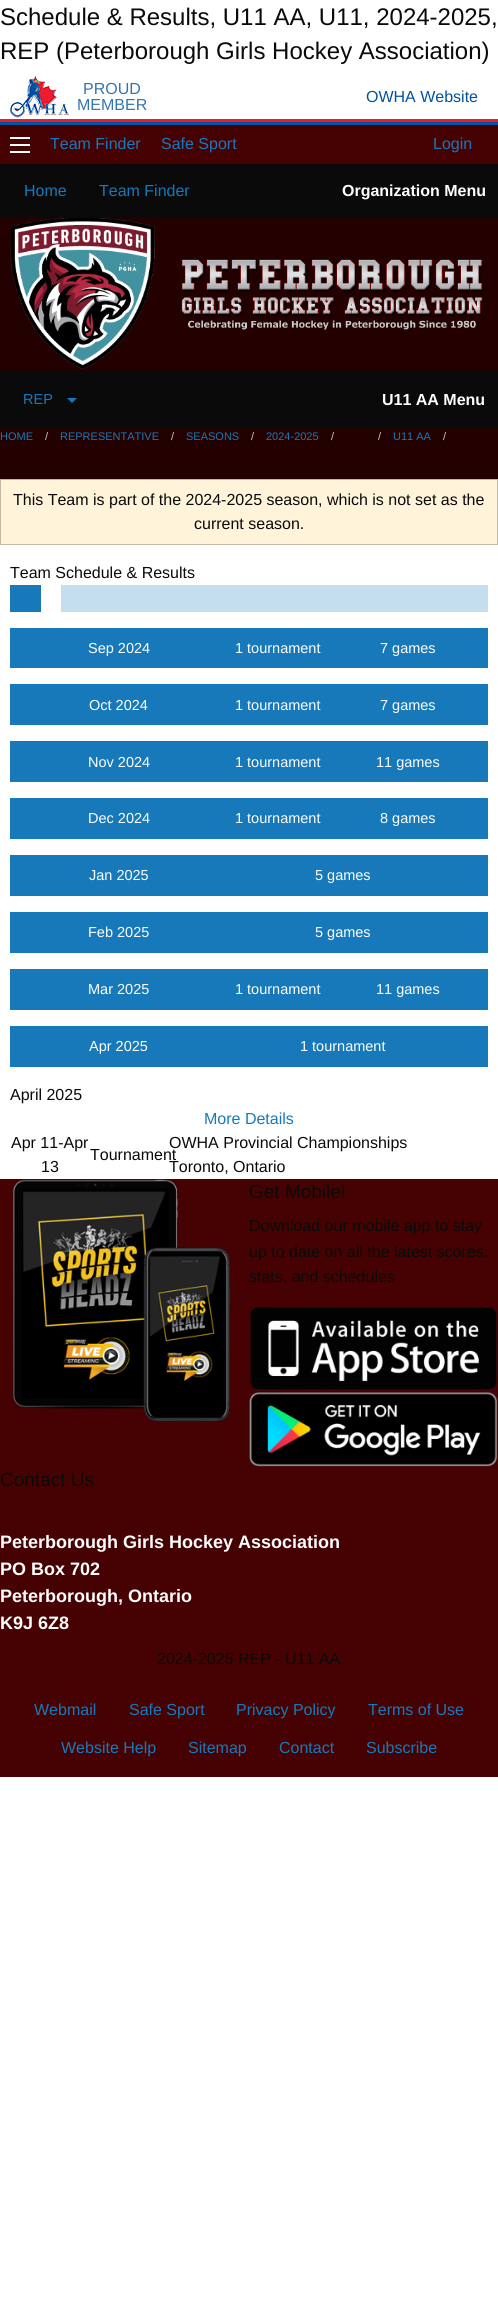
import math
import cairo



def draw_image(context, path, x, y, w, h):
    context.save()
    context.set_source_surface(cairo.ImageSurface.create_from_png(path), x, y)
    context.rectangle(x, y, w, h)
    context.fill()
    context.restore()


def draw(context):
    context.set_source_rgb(1, 1, 1)
    context.paint()
    draw_image(context, "images/1.png", 10, 75, 59, 43)
    context.set_source_rgb(237 / 255, 27 / 255, 45 / 255)
    context.rectangle(0, 119, 498, 3)
    context.fill()
    context.set_source_rgb(0, 83 / 255, 159 / 255)
    context.rectangle(0, 122, 498, 3)
    context.fill()
    context.set_source_rgb(70 / 255, 2 / 255, 2 / 255)
    context.rectangle(0, 125, 498, 1652)
    context.fill()
    context.set_source_rgb(254 / 255, 254 / 255, 254 / 255)
    context.rectangle(10, 151, 20, 2)
    context.fill()
    context.rectangle(10, 144, 20, 2)
    context.fill()
    context.rectangle(10, 137, 20, 2)
    context.fill()
    context.set_source_rgb(35 / 255, 1 / 255, 1 / 255)
    context.rectangle(0, 218, 498, 153)
    context.fill()
    context.set_source_rgb(10 / 255, 10 / 255, 10 / 255)
    context.rectangle(0, 164, 498, 54)
    context.fill()
    draw_image(context, "images/2.png", 10, 218, 145, 152)
    draw_image(context, "images/3.png", 181, 259, 304, 71)
    context.rectangle(0, 371, 498, 57)
    context.fill()
    context.set_source_rgb(23 / 255, 121 / 255, 186 / 255)
    context.new_path()
    context.move_to(67, 398)
    context.line_to(77, 398)
    context.line_to(72, 403)
    context.close_path()
    context.fill()
    context.set_source_rgb(35 / 255, 1 / 255, 1 / 255)
    context.rectangle(0, 428, 498, 51)
    context.fill()
    context.set_source_rgb(1, 1, 1)
    context.rectangle(0, 545, 498, 634)
    context.fill()
    context.set_source_rgb(1, 243 / 255, 217 / 255)
    context.rectangle(0.5, 479.5, 497, 65)
    context.fill_preserve()
    context.set_source_rgb(194 / 255, 185 / 255, 165 / 255)
    context.set_line_width(1)
    context.stroke()
    context.set_source_rgb(23 / 255, 121 / 255, 186 / 255)
    context.rectangle(10, 585, 31, 27)
    context.fill()
    context.set_source_rgb(197 / 255, 222 / 255, 238 / 255)
    context.rectangle(61, 585, 427, 27)
    context.fill()
    context.set_source_rgb(23 / 255, 121 / 255, 186 / 255)
    context.rectangle(10, 628, 478, 40)
    context.fill()
    context.rectangle(10, 684, 478, 41)
    context.fill()
    context.rectangle(10, 741, 478, 41)
    context.fill()
    context.rectangle(10, 798, 478, 41)
    context.fill()
    context.rectangle(10, 855, 478, 41)
    context.fill()
    context.rectangle(10, 912, 478, 41)
    context.fill()
    context.rectangle(10, 969, 478, 41)
    context.fill()
    context.rectangle(10, 1026, 478, 41)
    context.fill()
    draw_image(context, "images/4.png", 7, 1179, 224, 243)
    draw_image(context, "images/5.png", 250, 1307, 247, 83)
    draw_image(context, "images/6.png", 249, 1392, 249, 75)
    context.select_font_face("Liberation Sans")
    context.set_font_size(24)
    context.set_source_rgb(10 / 255, 10 / 255, 10 / 255)
    context.move_to(0, 25)
    context.show_text("Schedule & Results, U11 AA, U11, 2024-2025,")
    context.move_to(0, 59)
    context.show_text("REP (Peterborough Girls Hockey Association)")
    context.set_font_size(16)
    context.set_source_rgb(51 / 255, 117 / 255, 178 / 255)
    context.move_to(83, 94)
    context.show_text("PROUD")
    context.move_to(77, 110)
    context.show_text("MEMBER")
    context.set_source_rgb(0, 83 / 255, 159 / 255)
    context.move_to(366, 102)
    context.show_text("OWHA Website")
    context.set_source_rgb(23 / 255, 121 / 255, 186 / 255)
    context.move_to(50, 149)
    context.show_text("Team Finder")
    context.move_to(161, 149)
    context.show_text("Safe Sport")
    context.move_to(433, 149)
    context.show_text("Login")
    context.move_to(24, 196)
    context.show_text("Home")
    context.move_to(99, 196)
    context.show_text("Team Finder")
    context.select_font_face("Liberation Sans", cairo.FontSlant.NORMAL, cairo.FontWeight.BOLD)
    context.set_source_rgb(254 / 255, 254 / 255, 254 / 255)
    context.move_to(342, 196)
    context.show_text("Organization Menu")
    context.select_font_face("Liberation Sans")
    context.set_font_size(14.5)
    context.set_source_rgb(23 / 255, 121 / 255, 186 / 255)
    context.move_to(23, 404)
    context.show_text("REP")
    context.select_font_face("Liberation Sans", cairo.FontSlant.NORMAL, cairo.FontWeight.BOLD)
    context.set_font_size(16)
    context.set_source_rgb(254 / 255, 254 / 255, 254 / 255)
    context.move_to(382, 405)
    context.show_text("U11 AA Menu")
    context.select_font_face("Liberation Sans")
    context.set_font_size(11)
    context.set_source_rgb(23 / 255, 121 / 255, 186 / 255)
    context.move_to(0, 440)
    context.show_text("HOME")
    context.set_source_rgb(202 / 255, 202 / 255, 202 / 255)
    context.move_to(45, 440)
    context.show_text("/")
    context.set_source_rgb(23 / 255, 121 / 255, 186 / 255)
    context.move_to(60, 440)
    context.show_text("REPRESENTATIVE")
    context.set_source_rgb(202 / 255, 202 / 255, 202 / 255)
    context.move_to(171, 440)
    context.show_text("/")
    context.set_source_rgb(23 / 255, 121 / 255, 186 / 255)
    context.move_to(186, 440)
    context.show_text("SEASONS")
    context.set_source_rgb(202 / 255, 202 / 255, 202 / 255)
    context.move_to(251, 440)
    context.show_text("/")
    context.set_source_rgb(23 / 255, 121 / 255, 186 / 255)
    context.move_to(266, 440)
    context.show_text("2024-2025")
    context.set_source_rgb(202 / 255, 202 / 255, 202 / 255)
    context.move_to(331, 440)
    context.show_text("/")
    context.move_to(378, 440)
    context.show_text("/")
    context.set_source_rgb(23 / 255, 121 / 255, 186 / 255)
    context.move_to(393, 440)
    context.show_text("U11 AA")
    context.set_source_rgb(202 / 255, 202 / 255, 202 / 255)
    context.move_to(443, 440)
    context.show_text("/")
    context.set_font_size(16)
    context.set_source_rgb(10 / 255, 10 / 255, 10 / 255)
    context.move_to(13, 505)
    context.show_text("This Team is part of the 2024-2025 season, which is not set as the")
    context.move_to(194, 529)
    context.show_text("current season.")
    context.move_to(10, 578)
    context.show_text("Team Schedule & Results")
    context.set_font_size(14.5)
    context.set_source_rgb(254 / 255, 254 / 255, 254 / 255)
    context.move_to(88, 653)
    context.show_text("Sep 2024")
    context.move_to(235, 653)
    context.show_text("1 tournament")
    context.move_to(380, 653)
    context.show_text("7 games")
    context.move_to(89, 710)
    context.show_text("Oct 2024")
    context.move_to(235, 710)
    context.show_text("1 tournament")
    context.move_to(380, 710)
    context.show_text("7 games")
    context.move_to(88, 767)
    context.show_text("Nov 2024")
    context.move_to(235, 767)
    context.show_text("1 tournament")
    context.move_to(376, 767)
    context.show_text("11 games")
    context.move_to(88, 823)
    context.show_text("Dec 2024")
    context.move_to(235, 823)
    context.show_text("1 tournament")
    context.move_to(380, 823)
    context.show_text("8 games")
    context.move_to(89, 880)
    context.show_text("Jan 2025")
    context.move_to(315, 880)
    context.show_text("5 games")
    context.move_to(88, 937)
    context.show_text("Feb 2025")
    context.move_to(315, 937)
    context.show_text("5 games")
    context.move_to(88, 994)
    context.show_text("Mar 2025")
    context.move_to(235, 994)
    context.show_text("1 tournament")
    context.move_to(376, 994)
    context.show_text("11 games")
    context.move_to(89, 1051)
    context.show_text("Apr 2025")
    context.move_to(300, 1051)
    context.show_text("1 tournament")
    context.set_font_size(16)
    context.set_source_rgb(10 / 255, 10 / 255, 10 / 255)
    context.move_to(10, 1100)
    context.show_text("April 2025")
    context.set_source_rgb(23 / 255, 121 / 255, 186 / 255)
    context.move_to(204, 1124)
    context.show_text("More Details")
    context.set_source_rgb(10 / 255, 10 / 255, 10 / 255)
    context.move_to(11, 1148)
    context.show_text("Apr 11-Apr")
    context.move_to(41, 1172)
    context.show_text("13")
    context.move_to(90, 1160)
    context.show_text("Tournament")
    context.move_to(169, 1148)
    context.show_text("OWHA Provincial Championships")
    context.move_to(169, 1172)
    context.show_text("Toronto, Ontario")
    context.set_font_size(19)
    context.move_to(249, 1198)
    context.show_text("Get Mobile!")
    context.set_font_size(16)
    context.move_to(249, 1231)
    context.show_text("Download our mobile app to stay")
    context.move_to(249, 1257)
    context.show_text("up to date on all the latest scores,")
    context.move_to(249, 1282)
    context.show_text("stats, and schedules")
    context.set_font_size(19)
    context.move_to(0, 1486)
    context.show_text("Contact Us")
    context.select_font_face("Liberation Sans", cairo.FontSlant.NORMAL, cairo.FontWeight.BOLD)
    context.set_font_size(18)
    context.set_source_rgb(254 / 255, 254 / 255, 254 / 255)
    context.move_to(0, 1548)
    context.show_text("Peterborough Girls Hockey Association")
    context.move_to(0, 1575)
    context.show_text("PO Box 702")
    context.move_to(0, 1602)
    context.show_text("Peterborough, Ontario")
    context.move_to(0, 1629)
    context.show_text("K9J 6Z8")
    context.select_font_face("Liberation Sans")
    context.set_font_size(16)
    context.set_source_rgb(10 / 255, 10 / 255, 10 / 255)
    context.move_to(157, 1664)
    context.show_text("2024-2025 REP - U11 AA")
    context.set_source_rgb(23 / 255, 121 / 255, 186 / 255)
    context.move_to(34, 1715)
    context.show_text("Webmail")
    context.move_to(129, 1715)
    context.show_text("Safe Sport")
    context.move_to(236, 1715)
    context.show_text("Privacy Policy")
    context.move_to(368, 1715)
    context.show_text("Terms of Use")
    context.move_to(61, 1753)
    context.show_text("Website Help")
    context.move_to(188, 1753)
    context.show_text("Sitemap")
    context.move_to(279, 1753)
    context.show_text("Contact")
    context.move_to(366, 1753)
    context.show_text("Subscribe")


surface = cairo.ImageSurface(cairo.Format.RGB24, 498, 2317)
context = cairo.Context(surface)
options = cairo.FontOptions()
options.set_hint_metrics(cairo.HintMetrics.OFF)
options.set_hint_style(cairo.HintStyle.NONE)
context.set_font_options(options)
context.set_miter_limit(4)
draw(context)
surface.write_to_png("out.png")
